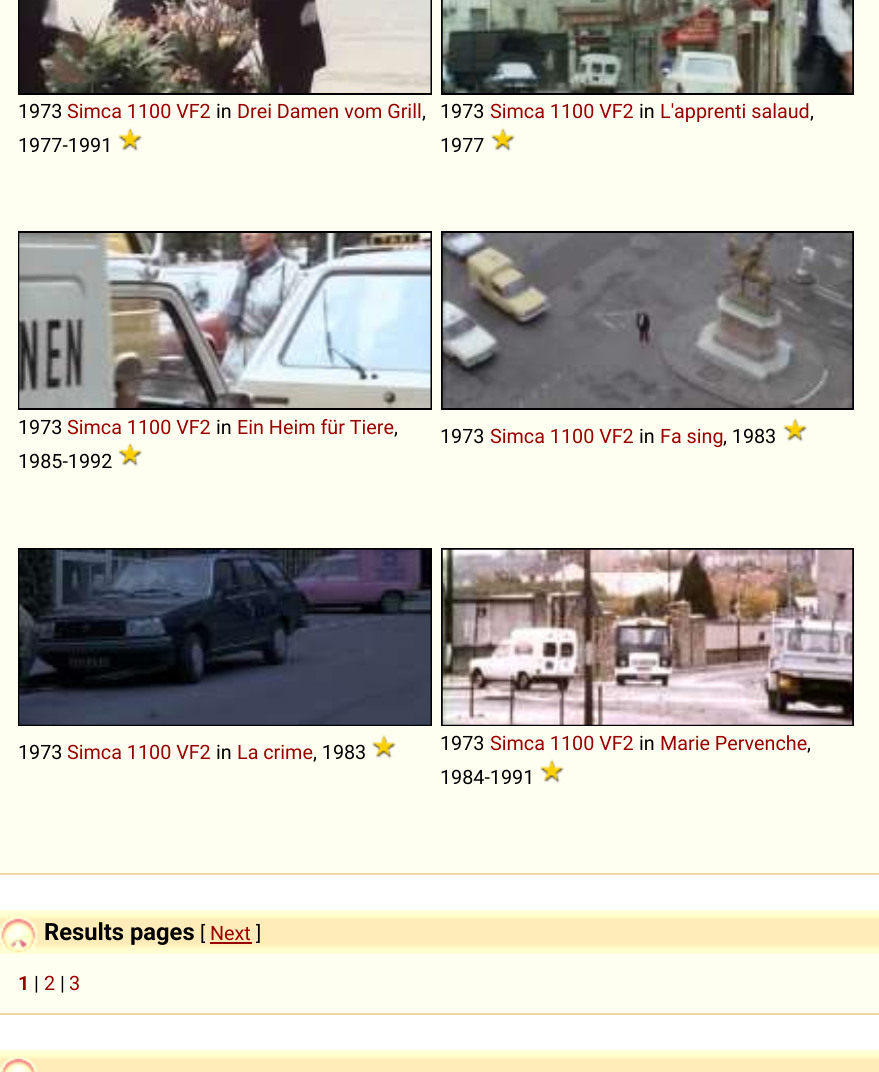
import math
import cairo



def draw_image(context, path, x, y, w, h):
    context.save()
    context.set_source_surface(cairo.ImageSurface.create_from_png(path), x, y)
    context.rectangle(x, y, w, h)
    context.fill()
    context.restore()


def draw(context):
    context.set_source_rgb(1, 1, 1)
    context.paint()
    context.set_source_rgb(1, 1, 241 / 255)
    context.rectangle(0, 0, 879, 873)
    context.fill()
    context.set_source_rgb(239 / 255, 214 / 255, 163 / 255)
    context.rectangle(0, 873, 879, 2)
    context.fill()
    context.rectangle(19, -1, 412, 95)
    context.set_source_rgb(0, 0, 0)
    context.stroke()
    draw_image(context, "images/1.png", 19, 0, 412, 93)
    draw_image(context, "images/2.png", 118, 127, 25, 25)
    context.rectangle(442, -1, 411, 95)
    context.stroke()
    draw_image(context, "images/3.png", 442, 0, 411, 93)
    draw_image(context, "images/4.png", 491, 127, 24, 25)
    context.rectangle(19, 232, 412, 177)
    context.stroke()
    draw_image(context, "images/5.png", 19, 233, 412, 175)
    draw_image(context, "images/2.png", 118, 442, 25, 25)
    context.rectangle(442, 232, 411, 177)
    context.stroke()
    draw_image(context, "images/6.png", 442, 233, 411, 175)
    draw_image(context, "images/7.png", 783, 418, 25, 24)
    context.rectangle(19, 549, 412, 176)
    context.stroke()
    draw_image(context, "images/8.png", 19, 549, 412, 176)
    draw_image(context, "images/9.png", 372, 735, 24, 24)
    context.rectangle(442, 549, 411, 176)
    context.stroke()
    draw_image(context, "images/10.png", 442, 549, 411, 176)
    draw_image(context, "images/11.png", 540, 759, 24, 24)
    context.set_source_rgb(1, 1, 241 / 255)
    context.rectangle(0, 954, 879, 59)
    context.fill()
    context.set_source_rgb(239 / 255, 214 / 255, 163 / 255)
    context.rectangle(0, 1013, 879, 2)
    context.fill()
    context.set_source_rgb(1, 1, 215 / 255)
    context.rectangle(0, 910, 879, 44)
    context.fill()
    draw_image(context, "images/12.png", 0, 913, 879, 38)
    draw_image(context, "images/13.png", 0, 917, 38, 36)
    context.set_source_rgb(153 / 255, 0, 0)
    context.rectangle(210, 942, 42, 2)
    context.fill()
    context.set_source_rgb(1, 1, 215 / 255)
    context.rectangle(0, 1050, 879, 3)
    context.fill()
    draw_image(context, "images/14.png", 0, 1053, 879, 19)
    draw_image(context, "images/15.png", 0, 1057, 38, 15)
    context.select_font_face("Roboto")
    context.set_font_size(19.75)
    context.set_source_rgb(0, 0, 0)
    context.move_to(18, 118)
    context.show_text("1973")
    context.set_source_rgb(153 / 255, 0, 0)
    context.move_to(67, 118)
    context.show_text("Simca 1100 VF2")
    context.set_source_rgb(0, 0, 0)
    context.move_to(216, 118)
    context.show_text("in")
    context.set_source_rgb(153 / 255, 0, 0)
    context.move_to(237, 118)
    context.show_text("Drei Damen vom Grill")
    context.set_source_rgb(0, 0, 0)
    context.move_to(422, 118)
    context.show_text(",")
    context.move_to(18, 152)
    context.show_text("1977-1991")
    context.move_to(440, 118)
    context.show_text("1973")
    context.set_source_rgb(153 / 255, 0, 0)
    context.move_to(490, 118)
    context.show_text("Simca 1100 VF2")
    context.set_source_rgb(0, 0, 0)
    context.move_to(639, 118)
    context.show_text("in")
    context.set_source_rgb(153 / 255, 0, 0)
    context.move_to(660, 118)
    context.show_text("L'apprenti salaud")
    context.set_source_rgb(0, 0, 0)
    context.move_to(810, 118)
    context.show_text(",")
    context.move_to(440, 152)
    context.show_text("1977")
    context.move_to(18, 434)
    context.show_text("1973")
    context.set_source_rgb(153 / 255, 0, 0)
    context.move_to(67, 434)
    context.show_text("Simca 1100 VF2")
    context.set_source_rgb(0, 0, 0)
    context.move_to(216, 434)
    context.show_text("in")
    context.set_source_rgb(153 / 255, 0, 0)
    context.move_to(237, 434)
    context.show_text("Ein Heim für Tiere")
    context.set_source_rgb(0, 0, 0)
    context.move_to(394, 434)
    context.show_text(",")
    context.move_to(18, 468)
    context.show_text("1985-1992")
    context.move_to(440, 443)
    context.show_text("1973")
    context.set_source_rgb(153 / 255, 0, 0)
    context.move_to(490, 443)
    context.show_text("Simca 1100 VF2")
    context.set_source_rgb(0, 0, 0)
    context.move_to(639, 443)
    context.show_text("in")
    context.set_source_rgb(153 / 255, 0, 0)
    context.move_to(660, 443)
    context.show_text("Fa sing")
    context.set_source_rgb(0, 0, 0)
    context.move_to(723, 443)
    context.show_text(", 1983")
    context.move_to(18, 759)
    context.show_text("1973")
    context.set_source_rgb(153 / 255, 0, 0)
    context.move_to(67, 759)
    context.show_text("Simca 1100 VF2")
    context.set_source_rgb(0, 0, 0)
    context.move_to(216, 759)
    context.show_text("in")
    context.set_source_rgb(153 / 255, 0, 0)
    context.move_to(237, 759)
    context.show_text("La crime")
    context.set_source_rgb(0, 0, 0)
    context.move_to(313, 759)
    context.show_text(", 1983")
    context.move_to(440, 750)
    context.show_text("1973")
    context.set_source_rgb(153 / 255, 0, 0)
    context.move_to(490, 750)
    context.show_text("Simca 1100 VF2")
    context.set_source_rgb(0, 0, 0)
    context.move_to(639, 750)
    context.show_text("in")
    context.set_source_rgb(153 / 255, 0, 0)
    context.move_to(660, 750)
    context.show_text("Marie Pervenche")
    context.set_source_rgb(0, 0, 0)
    context.move_to(807, 750)
    context.show_text(",")
    context.move_to(440, 784)
    context.show_text("1984-1991")
    context.select_font_face("Roboto", cairo.FontSlant.NORMAL, cairo.FontWeight.BOLD)
    context.set_font_size(23.75)
    context.move_to(44, 940)
    context.show_text("Results pages")
    context.select_font_face("Roboto")
    context.set_font_size(19.75)
    context.move_to(200, 940)
    context.show_text("[")
    context.set_source_rgb(153 / 255, 0, 0)
    context.move_to(210, 940)
    context.show_text("Next")
    context.set_source_rgb(0, 0, 0)
    context.move_to(256, 940)
    context.show_text("]")
    context.select_font_face("Roboto", cairo.FontSlant.NORMAL, cairo.FontWeight.BOLD)
    context.set_source_rgb(153 / 255, 0, 0)
    context.move_to(18, 990)
    context.show_text("1")
    context.select_font_face("Roboto")
    context.set_source_rgb(0, 0, 0)
    context.move_to(34, 990)
    context.show_text("|")
    context.set_source_rgb(153 / 255, 0, 0)
    context.move_to(44, 990)
    context.show_text("2")
    context.set_source_rgb(0, 0, 0)
    context.move_to(60, 990)
    context.show_text("|")
    context.set_source_rgb(153 / 255, 0, 0)
    context.move_to(69, 990)
    context.show_text("3")


surface = cairo.ImageSurface(cairo.Format.RGB24, 879, 1072)
context = cairo.Context(surface)
options = cairo.FontOptions()
options.set_hint_metrics(cairo.HintMetrics.OFF)
options.set_hint_style(cairo.HintStyle.NONE)
context.set_font_options(options)
context.set_miter_limit(4)
draw(context)
surface.write_to_png("out.png")
